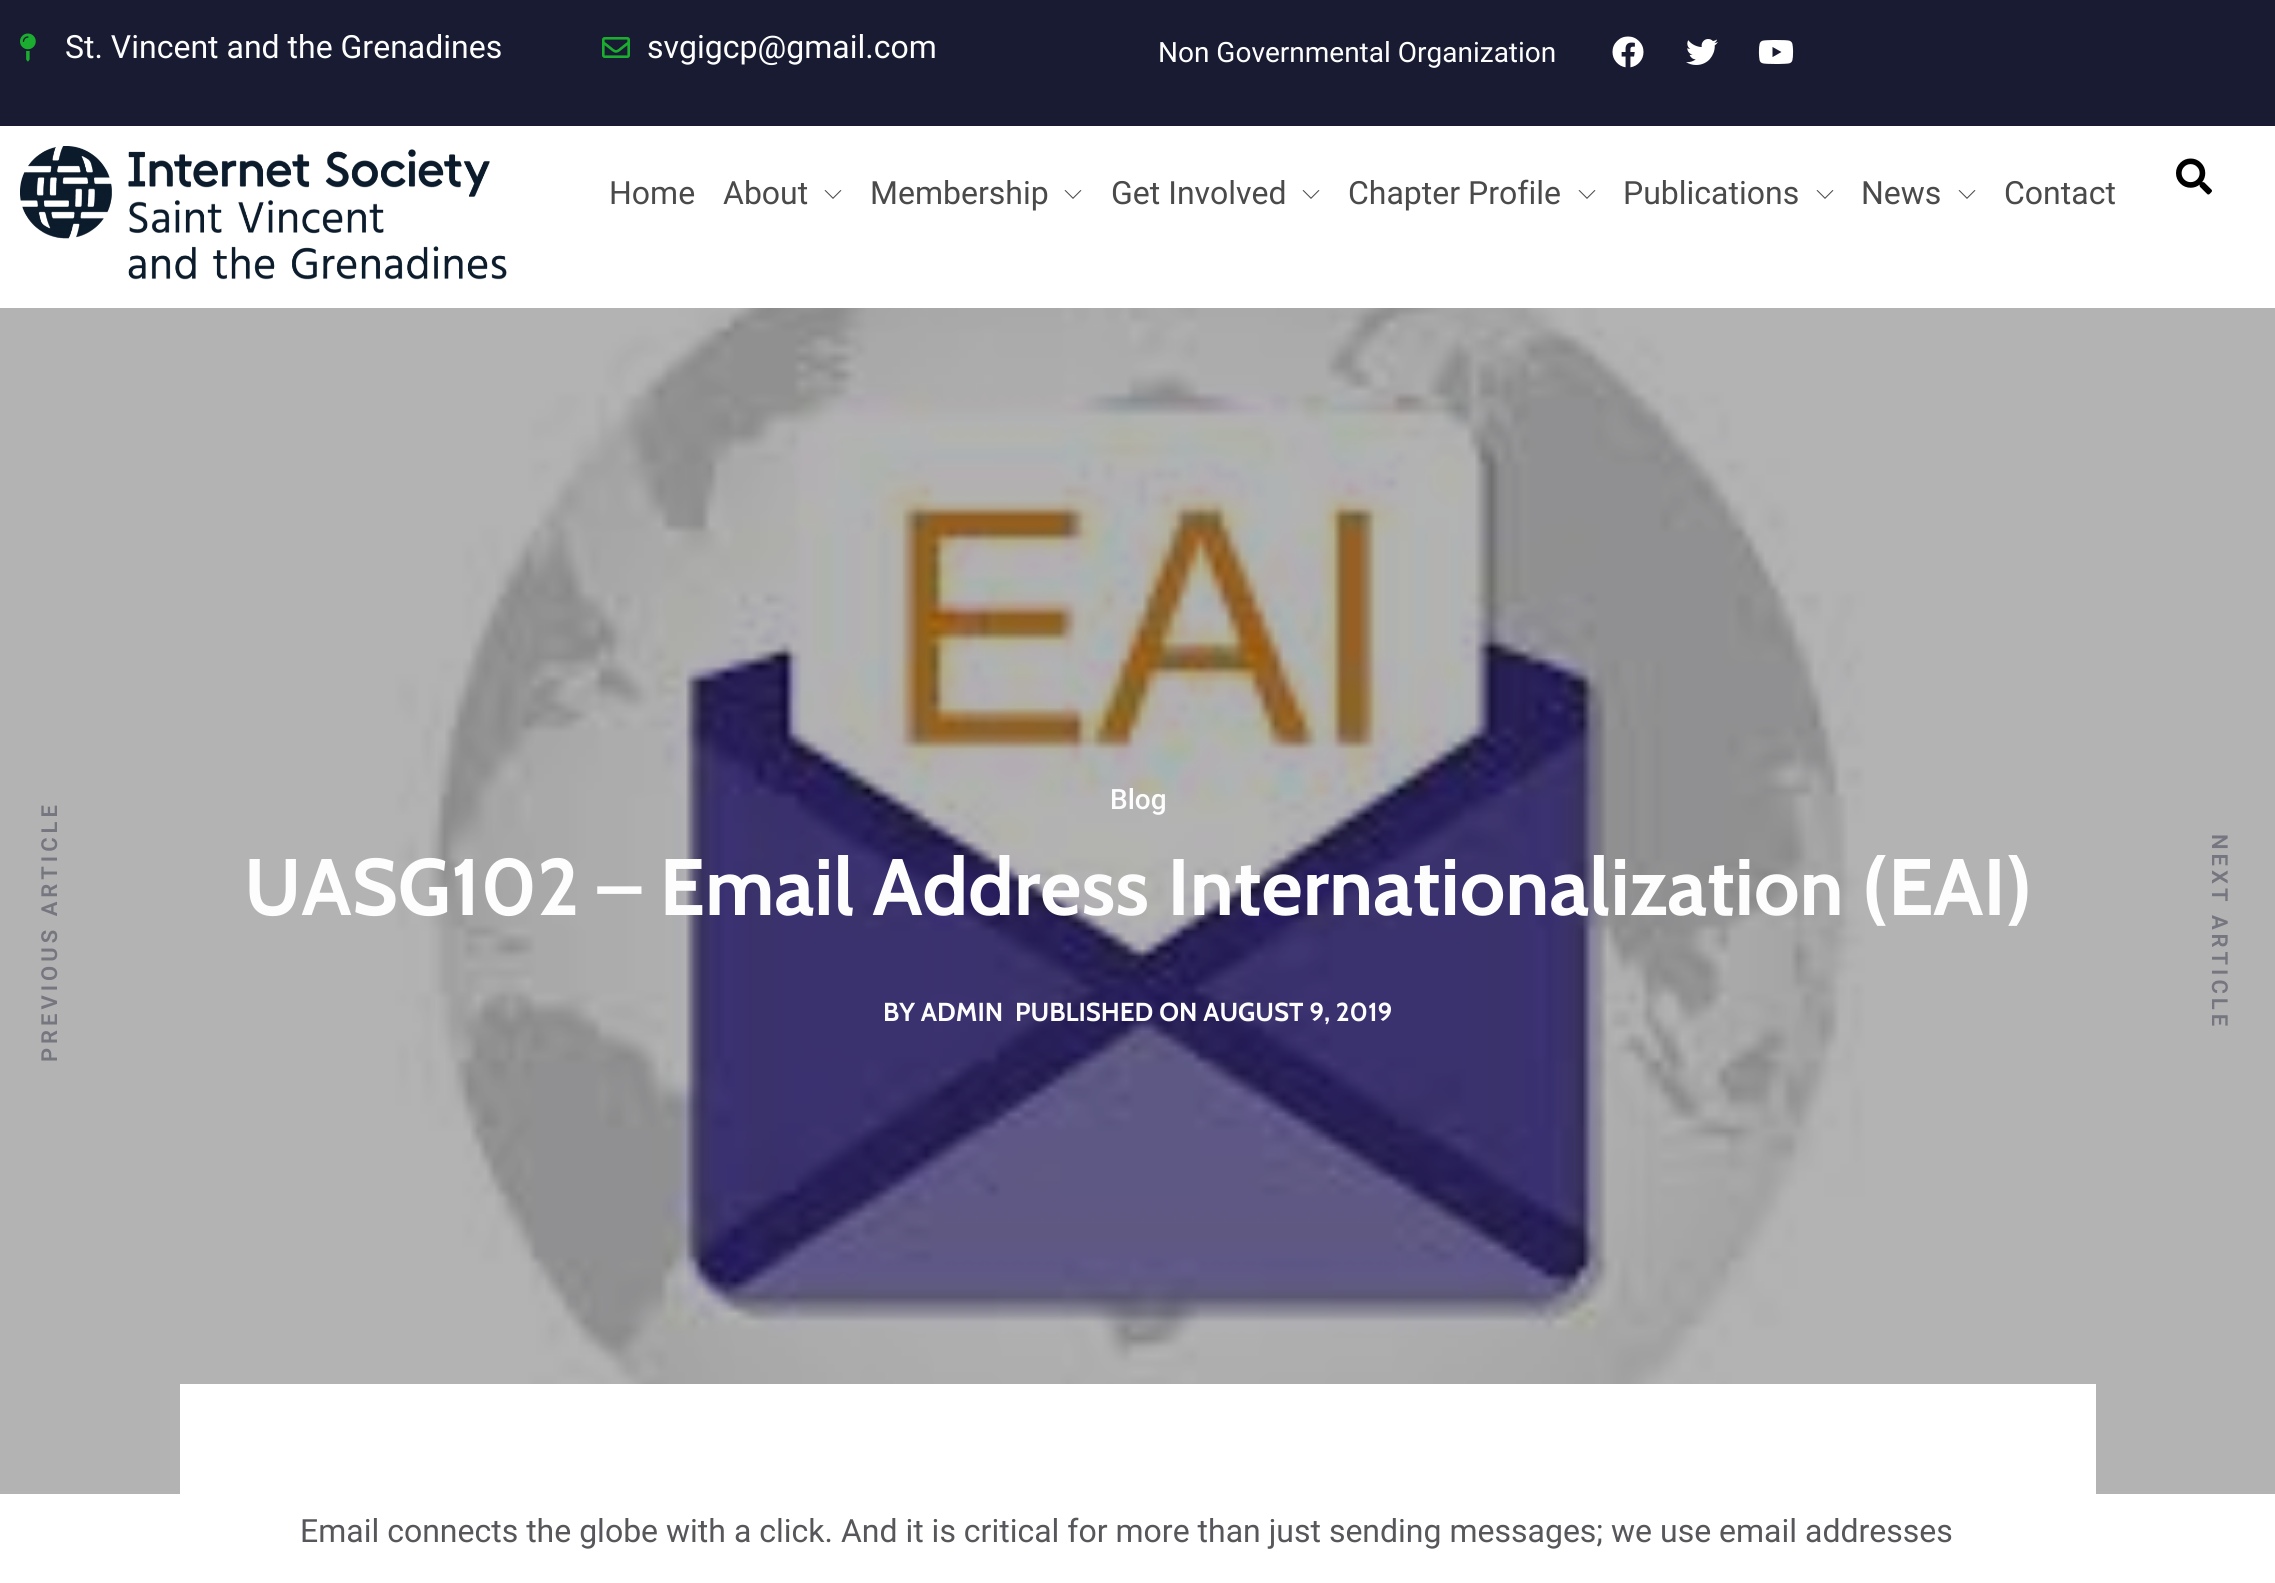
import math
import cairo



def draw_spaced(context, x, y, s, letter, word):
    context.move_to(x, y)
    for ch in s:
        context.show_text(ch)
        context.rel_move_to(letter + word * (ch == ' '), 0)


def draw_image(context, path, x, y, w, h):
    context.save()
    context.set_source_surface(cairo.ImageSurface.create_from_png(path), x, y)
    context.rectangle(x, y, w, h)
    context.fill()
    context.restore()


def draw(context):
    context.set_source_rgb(1, 1, 1)
    context.paint()
    context.set_source_rgb(24 / 255, 27 / 255, 49 / 255)
    context.rectangle(0, 0, 2275, 126)
    context.fill()
    draw_image(context, "images/1.png", 20, 33, 16, 29)
    draw_image(context, "images/2.png", 602, 37, 28, 21)
    draw_image(context, "images/3.png", 1612, 36, 32, 32)
    draw_image(context, "images/4.png", 1686, 39, 32, 26)
    draw_image(context, "images/5.png", 1758, 40, 36, 24)
    draw_image(context, "images/6.png", 20, 146, 487, 134)
    context.set_source_rgb(74 / 255, 74 / 255, 74 / 255)
    context.new_path()
    context.move_to(841.5, 190.5)
    context.line_to(833, 199)
    context.line_to(824.5, 190.5)
    context.line_to(825.5, 190)
    context.line_to(833, 197.5)
    context.line_to(840.5, 190)
    context.close_path()
    context.fill()
    context.new_path()
    context.move_to(1081.5, 190.5)
    context.line_to(1073, 199)
    context.line_to(1064.5, 190.5)
    context.line_to(1065.5, 190)
    context.line_to(1073, 197.5)
    context.line_to(1080.5, 190)
    context.close_path()
    context.fill()
    context.new_path()
    context.move_to(1319.5, 190.5)
    context.line_to(1311, 199)
    context.line_to(1302.5, 190.5)
    context.line_to(1303.5, 190)
    context.line_to(1311, 197.5)
    context.line_to(1318.5, 190)
    context.close_path()
    context.fill()
    context.new_path()
    context.move_to(1595.5, 190.5)
    context.line_to(1587, 199)
    context.line_to(1578.5, 190.5)
    context.line_to(1579.5, 190)
    context.line_to(1587, 197.5)
    context.line_to(1594.5, 190)
    context.close_path()
    context.fill()
    context.new_path()
    context.move_to(1833.5, 190.5)
    context.line_to(1825, 199)
    context.line_to(1816.5, 190.5)
    context.line_to(1817.5, 190)
    context.line_to(1825, 197.5)
    context.line_to(1832.5, 190)
    context.close_path()
    context.fill()
    context.new_path()
    context.move_to(1975.5, 190.5)
    context.line_to(1967, 199)
    context.line_to(1958.5, 190.5)
    context.line_to(1959.5, 190)
    context.line_to(1967, 197.5)
    context.line_to(1974.5, 190)
    context.close_path()
    context.fill()
    draw_image(context, "images/7.png", 2176, 158, 36, 37)
    draw_image(context, "images/8.png", 0, 308, 2275, 1186)
    context.set_source_rgb(1, 1, 1)
    context.rectangle(180, 1384, 1916, 110)
    context.fill()
    context.select_font_face("Roboto")
    context.set_font_size(32)
    context.set_source_rgb(253 / 255, 253 / 255, 253 / 255)
    context.move_to(65, 58)
    context.show_text("St. Vincent and the Grenadines")
    context.move_to(647, 58)
    context.show_text("svgigcp@gmail.com")
    context.set_font_size(28)
    context.move_to(1158, 62)
    context.show_text("Non Governmental Organization")
    context.set_font_size(32)
    context.set_source_rgb(74 / 255, 74 / 255, 74 / 255)
    context.move_to(609, 204)
    context.show_text("Home")
    context.move_to(723, 204)
    context.show_text("About")
    context.move_to(870, 204)
    context.show_text("Membership")
    context.move_to(1111, 204)
    context.show_text("Get Involved")
    context.move_to(1348, 204)
    context.show_text("Chapter Profile")
    context.move_to(1623, 204)
    context.show_text("Publications")
    context.move_to(1861, 204)
    context.show_text("News")
    context.move_to(2004, 204)
    context.show_text("Contact")
    context.select_font_face("Roboto Medium")
    context.set_font_size(28)
    context.set_source_rgb(253 / 255, 253 / 255, 253 / 255)
    context.move_to(1110, 809)
    context.show_text("Blog")
    context.select_font_face("Cabin", cairo.FontSlant.NORMAL, cairo.FontWeight.BOLD)
    context.set_font_size(80)
    context.move_to(244, 915)
    context.show_text("UASG102 – Email Address Internationalization (EAI)")
    context.set_font_size(26)
    context.move_to(883, 1021)
    context.show_text("BY ADMIN")
    context.move_to(1015, 1021)
    context.show_text("PUBLISHED ON AUGUST 9, 2019")
    context.select_font_face("Roboto SemiBold")
    context.set_font_size(22)
    context.set_source_rgb(117 / 255, 118 / 255, 127 / 255)
    context.save()
    context.translate(57, 1062)
    context.rotate(-90 * math.pi / 180)
    draw_spaced(context, 0, 0, "PREVIOUS ARTICLE", 4, 0)
    context.restore()
    context.save()
    context.translate(2212, 834)
    context.rotate(90 * math.pi / 180)
    draw_spaced(context, 0, 0, "NEXT ARTICLE", 4, 0)
    context.restore()
    context.select_font_face("Roboto")
    context.set_font_size(32)
    context.set_source_rgb(87 / 255, 87 / 255, 91 / 255)
    context.move_to(300, 1542)
    context.show_text("Email connects the globe with a click. And it is critical for more than just sending messages; we use email addresses")


surface = cairo.ImageSurface(cairo.Format.RGB24, 2275, 1583)
context = cairo.Context(surface)
options = cairo.FontOptions()
options.set_hint_metrics(cairo.HintMetrics.OFF)
options.set_hint_style(cairo.HintStyle.NONE)
context.set_font_options(options)
context.set_miter_limit(4)
draw(context)
surface.write_to_png("out.png")
